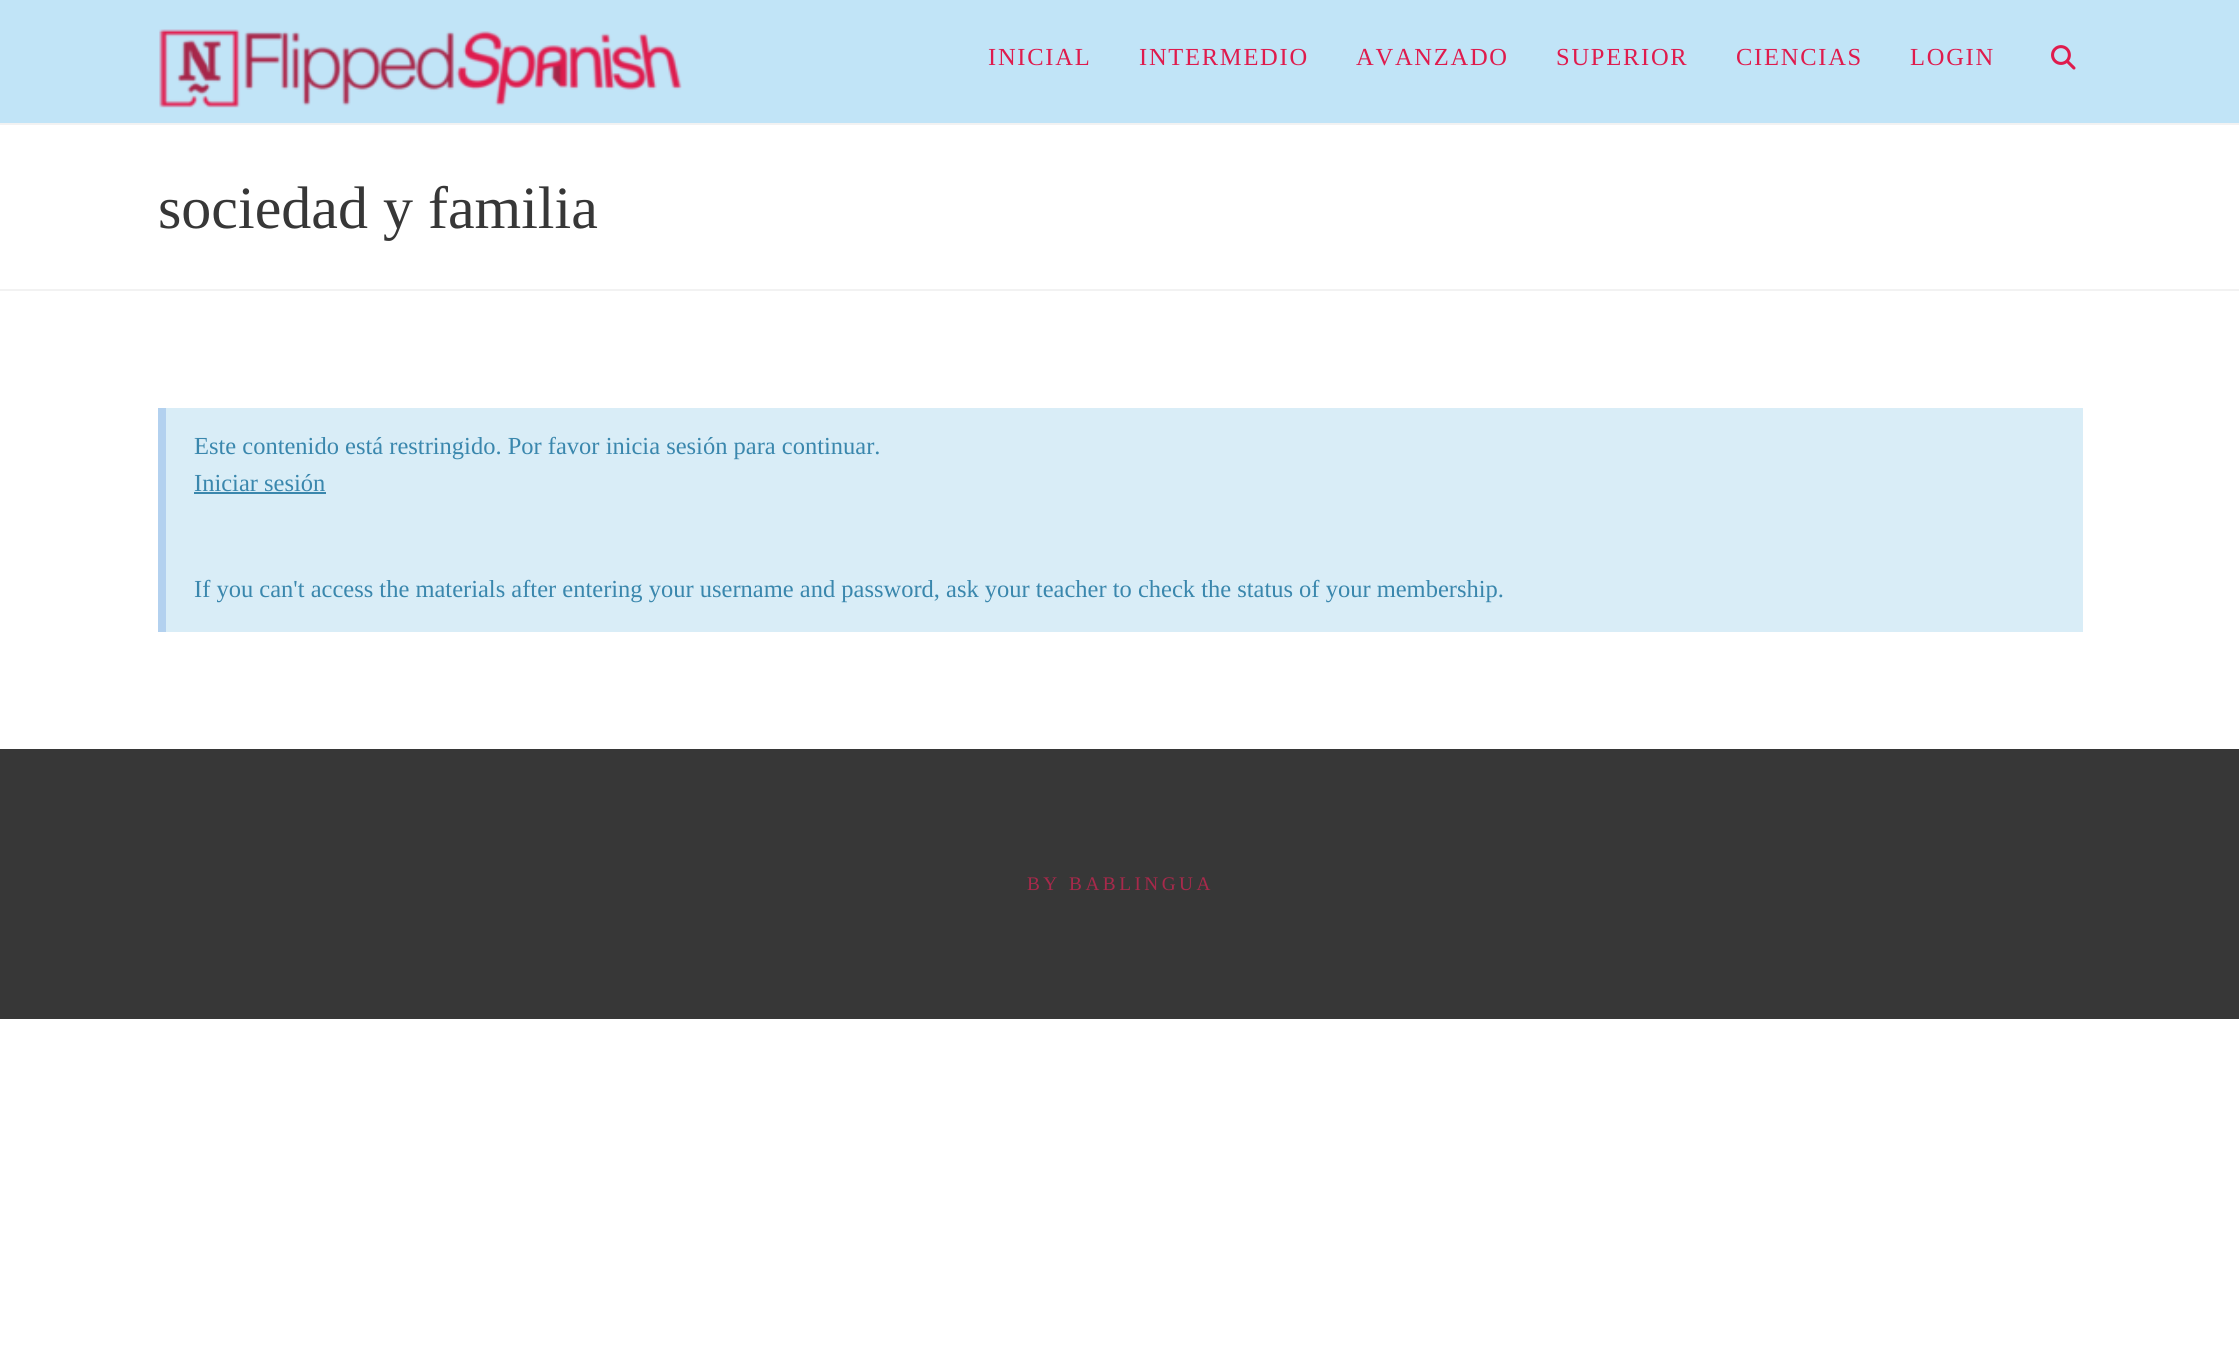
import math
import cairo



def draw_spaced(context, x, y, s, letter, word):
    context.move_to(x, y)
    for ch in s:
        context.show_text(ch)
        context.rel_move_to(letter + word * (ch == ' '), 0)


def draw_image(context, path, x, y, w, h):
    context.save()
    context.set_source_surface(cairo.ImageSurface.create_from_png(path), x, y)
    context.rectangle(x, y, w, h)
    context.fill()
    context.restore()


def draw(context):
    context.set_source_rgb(1, 1, 1)
    context.paint()
    context.set_source_rgb(193 / 255, 228 / 255, 247 / 255)
    context.rectangle(0, 0, 2239, 123)
    context.fill()
    draw_image(context, "images/1.png", 159, 29, 523, 79)
    draw_image(context, "images/2.png", 2051, 45, 25, 25)
    context.set_source_rgb(242 / 255, 242 / 255, 242 / 255)
    context.rectangle(0, 123, 2239, 2)
    context.fill()
    context.rectangle(0, 289, 2239, 2)
    context.fill()
    context.set_source_rgb(217 / 255, 237 / 255, 247 / 255)
    context.rectangle(166, 408, 1917, 224)
    context.fill()
    context.set_source_rgb(179 / 255, 209 / 255, 239 / 255)
    context.rectangle(158, 408, 8, 224)
    context.fill()
    context.set_source_rgb(58 / 255, 135 / 255, 173 / 255)
    context.rectangle(194, 492, 132, 2)
    context.fill()
    context.set_source_rgb(55 / 255, 55 / 255, 55 / 255)
    context.rectangle(0, 749, 2239, 270)
    context.fill()
    context.select_font_face("Liberation Serif")
    context.set_font_size(24.5)
    context.set_source_rgb(223 / 255, 27 / 255, 77 / 255)
    draw_spaced(context, 988, 65, "INICIAL", 1.75, 0)
    draw_spaced(context, 1139, 65, "INTERMEDIO", 1.75, 0)
    draw_spaced(context, 1356, 65, "AVANZADO", 1.75, 0)
    draw_spaced(context, 1556, 65, "SUPERIOR", 1.75, 0)
    draw_spaced(context, 1736, 65, "CIENCIAS", 1.75, 0)
    draw_spaced(context, 1910, 65, "LOGIN", 1.75, 0)
    context.set_font_size(60)
    context.set_source_rgb(55 / 255, 55 / 255, 55 / 255)
    context.move_to(158, 228)
    context.show_text("sociedad y familia")
    context.set_font_size(24.5)
    context.set_source_rgb(58 / 255, 135 / 255, 173 / 255)
    context.move_to(194, 454)
    context.show_text("Este contenido está restringido. Por favor inicia sesión para continuar.")
    context.move_to(194, 491)
    context.show_text("Iniciar sesión")
    context.move_to(194, 597)
    context.show_text("If you can't access the materials after entering your username and password, ask your teacher to check the status of your membership.")
    context.set_font_size(19.25)
    context.set_source_rgb(168 / 255, 41 / 255, 75 / 255)
    draw_spaced(context, 1027, 890, "BY BABLINGUA", 3.5, 0)


surface = cairo.ImageSurface(cairo.Format.RGB24, 2239, 1370)
context = cairo.Context(surface)
options = cairo.FontOptions()
options.set_hint_metrics(cairo.HintMetrics.OFF)
options.set_hint_style(cairo.HintStyle.NONE)
context.set_font_options(options)
context.set_miter_limit(4)
draw(context)
surface.write_to_png("out.png")
